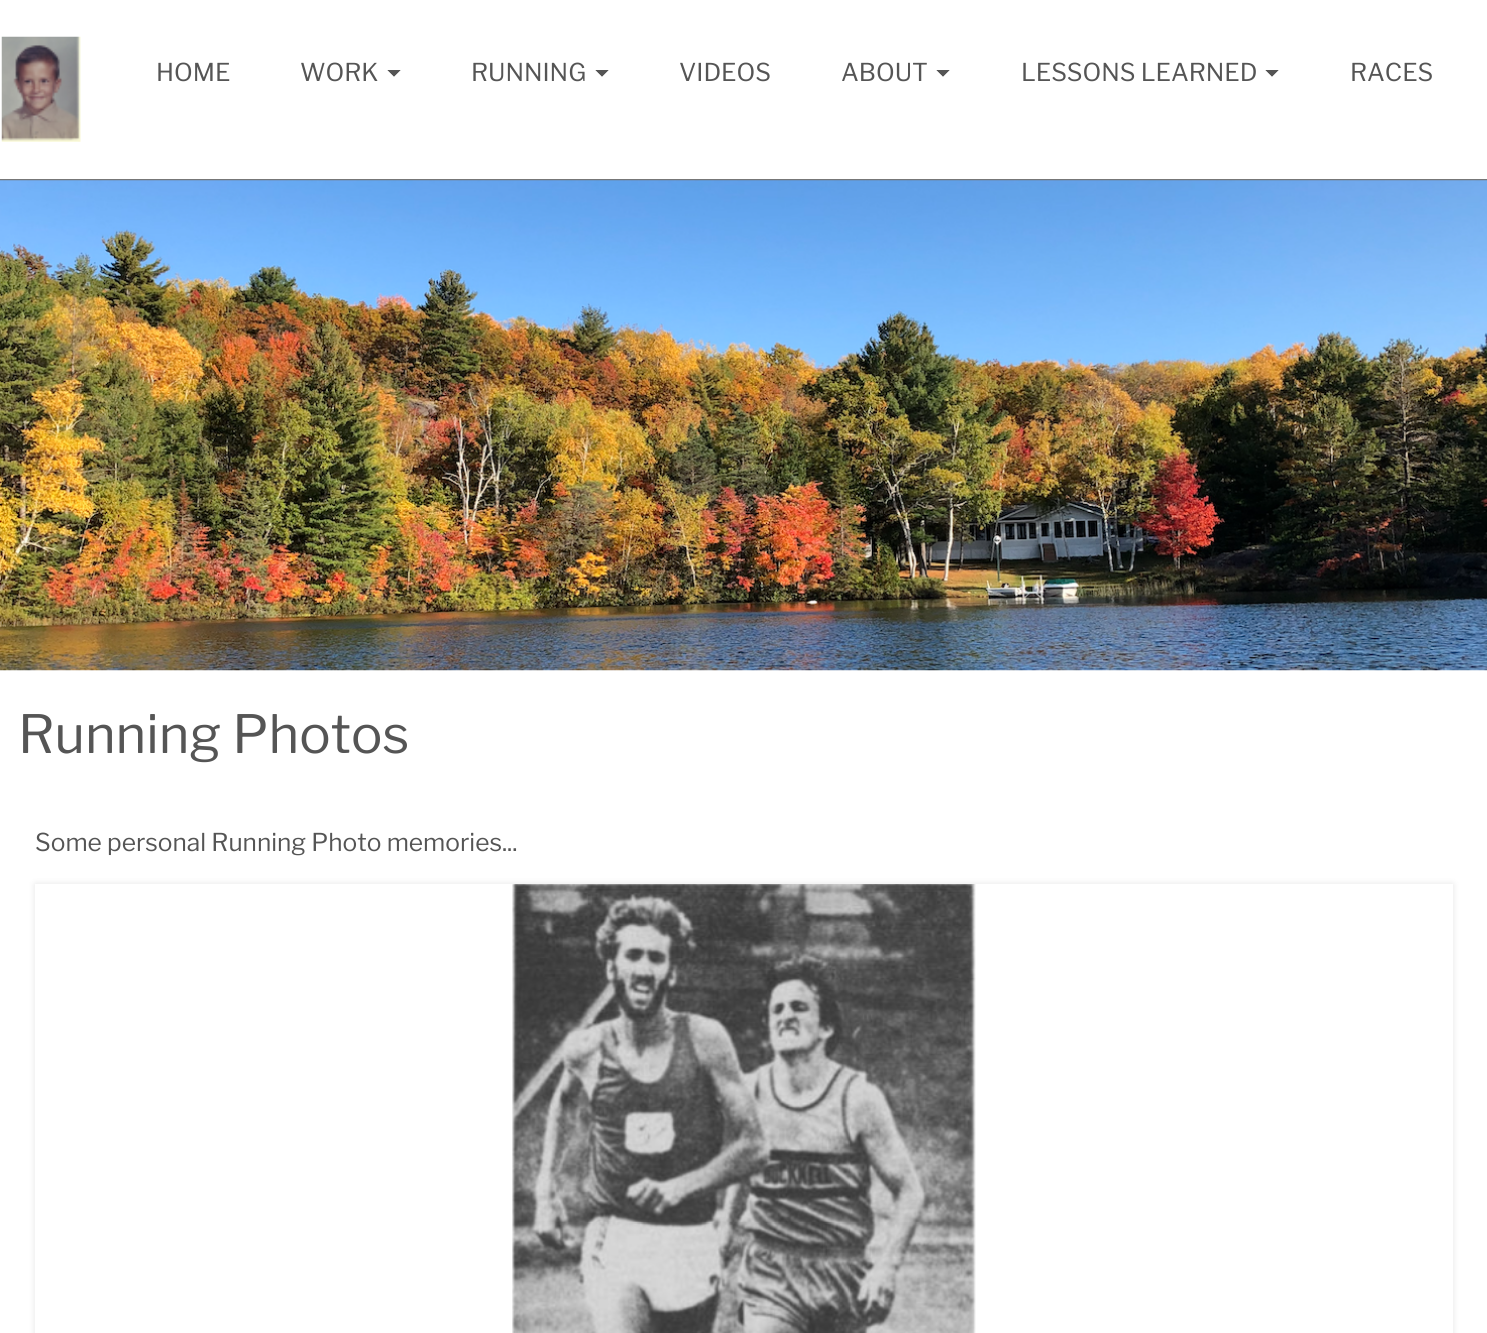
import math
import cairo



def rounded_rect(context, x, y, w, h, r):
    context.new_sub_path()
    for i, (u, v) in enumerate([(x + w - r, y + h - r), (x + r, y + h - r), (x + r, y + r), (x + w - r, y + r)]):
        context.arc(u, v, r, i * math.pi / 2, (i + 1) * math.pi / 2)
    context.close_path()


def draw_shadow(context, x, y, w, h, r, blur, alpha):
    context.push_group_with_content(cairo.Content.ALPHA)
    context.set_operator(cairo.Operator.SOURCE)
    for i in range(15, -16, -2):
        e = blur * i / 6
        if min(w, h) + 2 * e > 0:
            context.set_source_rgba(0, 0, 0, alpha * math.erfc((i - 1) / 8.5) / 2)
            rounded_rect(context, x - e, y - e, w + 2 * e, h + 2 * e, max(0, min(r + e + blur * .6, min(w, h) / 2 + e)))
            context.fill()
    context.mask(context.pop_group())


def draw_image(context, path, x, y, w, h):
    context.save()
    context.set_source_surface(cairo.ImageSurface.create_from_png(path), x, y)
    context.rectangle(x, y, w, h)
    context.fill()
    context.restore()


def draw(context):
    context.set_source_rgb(1, 1, 1)
    context.paint()
    context.set_source_rgb(119 / 255, 119 / 255, 119 / 255)
    context.rectangle(0, 179, 1487, 2)
    context.fill()
    draw_image(context, "images/1.png", 1, 36, 80, 106)
    context.set_source_rgb(85 / 255, 85 / 255, 85 / 255)
    context.new_path()
    context.move_to(387, 70)
    context.line_to(401, 70)
    context.line_to(394, 77)
    context.close_path()
    context.fill()
    context.set_source_rgb(1, 1, 1)
    context.new_path()
    context.move_to(401, 70)
    context.line_to(401, 77)
    context.line_to(394, 77)
    context.close_path()
    context.move_to(387, 77)
    context.line_to(387, 70)
    context.line_to(394, 77)
    context.close_path()
    context.fill()
    context.set_source_rgb(85 / 255, 85 / 255, 85 / 255)
    context.new_path()
    context.move_to(595, 70)
    context.line_to(609, 70)
    context.line_to(602, 77)
    context.close_path()
    context.fill()
    context.set_source_rgb(1, 1, 1)
    context.new_path()
    context.move_to(609, 70)
    context.line_to(609, 77)
    context.line_to(602, 77)
    context.close_path()
    context.move_to(595, 77)
    context.line_to(595, 70)
    context.line_to(602, 77)
    context.close_path()
    context.fill()
    context.set_source_rgb(85 / 255, 85 / 255, 85 / 255)
    context.new_path()
    context.move_to(936, 70)
    context.line_to(950, 70)
    context.line_to(943, 77)
    context.close_path()
    context.fill()
    context.set_source_rgb(1, 1, 1)
    context.new_path()
    context.move_to(950, 70)
    context.line_to(950, 77)
    context.line_to(943, 77)
    context.close_path()
    context.move_to(936, 77)
    context.line_to(936, 70)
    context.line_to(943, 77)
    context.close_path()
    context.fill()
    context.set_source_rgb(85 / 255, 85 / 255, 85 / 255)
    context.new_path()
    context.move_to(1265, 70)
    context.line_to(1279, 70)
    context.line_to(1272, 77)
    context.close_path()
    context.fill()
    context.set_source_rgb(1, 1, 1)
    context.new_path()
    context.move_to(1279, 70)
    context.line_to(1279, 77)
    context.line_to(1272, 77)
    context.close_path()
    context.move_to(1265, 77)
    context.line_to(1265, 70)
    context.line_to(1272, 77)
    context.close_path()
    context.fill()
    draw_image(context, "images/2.png", 0, 180, 1487, 491)
    context.set_source_rgb(0, 0, 0)
    draw_shadow(context, 35, 884, 1418, 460, 0, 3.5, 0.1)
    context.set_source_rgb(1, 1, 1)
    context.rectangle(35, 884, 1418, 449)
    context.fill()
    draw_image(context, "images/3.png", 512, 884, 464, 449)
    context.select_font_face("Libre Franklin")
    context.set_font_size(24.5)
    context.set_source_rgb(85 / 255, 85 / 255, 85 / 255)
    context.move_to(156, 81)
    context.show_text("HOME")
    context.move_to(300, 81)
    context.show_text("WORK")
    context.move_to(471, 81)
    context.show_text("RUNNING")
    context.move_to(679, 81)
    context.show_text("VIDEOS")
    context.move_to(841, 81)
    context.show_text("ABOUT")
    context.move_to(1021, 81)
    context.show_text("LESSONS LEARNED")
    context.move_to(1350, 81)
    context.show_text("RACES")
    context.set_font_size(52.5)
    context.move_to(18, 753)
    context.show_text("Running Photos")
    context.set_font_size(24.5)
    context.move_to(35, 851)
    context.show_text("Some personal Running Photo memories...")


surface = cairo.ImageSurface(cairo.Format.RGB24, 1487, 1333)
context = cairo.Context(surface)
options = cairo.FontOptions()
options.set_hint_metrics(cairo.HintMetrics.OFF)
options.set_hint_style(cairo.HintStyle.NONE)
context.set_font_options(options)
context.set_miter_limit(4)
draw(context)
surface.write_to_png("out.png")
